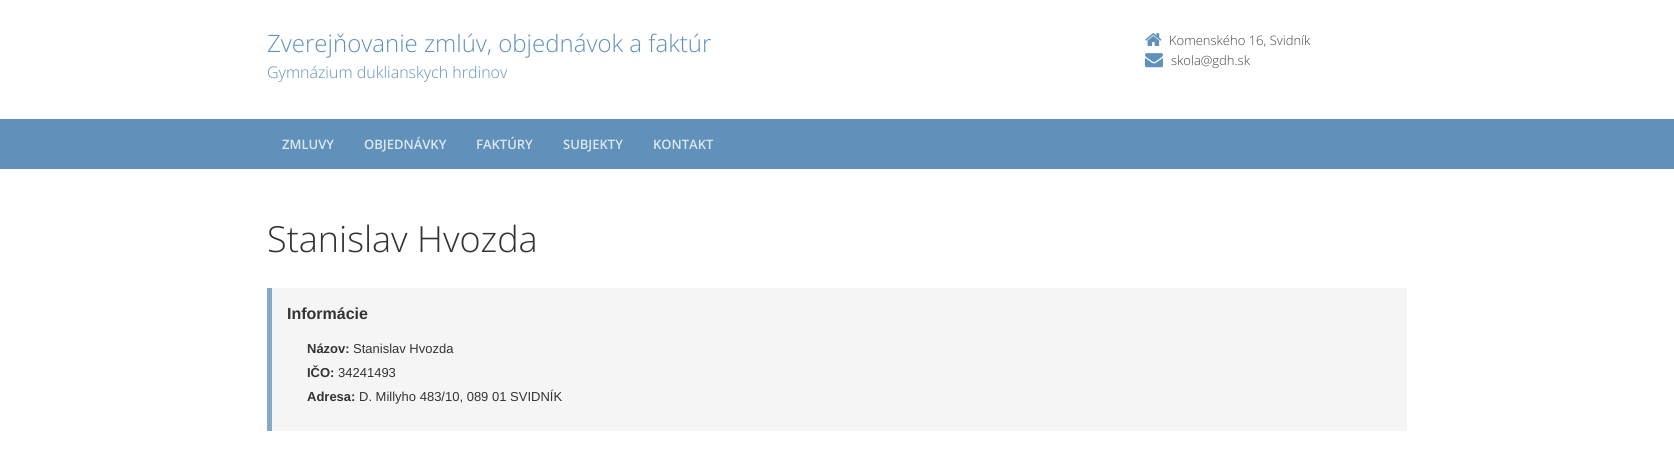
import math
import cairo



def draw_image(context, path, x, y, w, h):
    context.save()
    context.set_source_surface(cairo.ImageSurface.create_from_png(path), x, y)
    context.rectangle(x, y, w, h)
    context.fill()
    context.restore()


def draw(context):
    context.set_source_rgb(1, 1, 1)
    context.paint()
    draw_image(context, "images/1.png", 1145, 33, 17, 13)
    draw_image(context, "images/2.png", 1145, 53, 18, 15)
    context.set_source_rgb(96 / 255, 145 / 255, 186 / 255)
    context.rectangle(0, 119, 1674, 50)
    context.fill()
    context.set_source_rgb(245 / 255, 245 / 255, 245 / 255)
    context.rectangle(272, 288, 1135, 143)
    context.fill()
    context.set_source_rgb(132 / 255, 170 / 255, 201 / 255)
    context.rectangle(267, 288, 5, 143)
    context.fill()
    context.select_font_face("Open Sans Light")
    context.set_font_size(24)
    context.set_source_rgb(96 / 255, 145 / 255, 186 / 255)
    context.move_to(267, 52)
    context.show_text("Zverejňovanie zmlúv, objednávok a faktúr")
    context.set_font_size(16)
    context.move_to(267, 78)
    context.show_text("Gymnázium duklianskych hrdinov")
    context.set_font_size(13)
    context.set_source_rgb(68 / 255, 68 / 255, 68 / 255)
    context.move_to(1169, 45)
    context.show_text("Komenského 16, Svidník")
    context.move_to(1171, 65)
    context.show_text("skola@gdh.sk")
    context.select_font_face("Open Sans SemiBold")
    context.set_source_rgb(220 / 255, 231 / 255, 240 / 255)
    context.move_to(282, 149)
    context.show_text("ZMLUVY")
    context.move_to(364, 149)
    context.show_text("OBJEDNÁVKY")
    context.move_to(476, 149)
    context.show_text("FAKTÚRY")
    context.move_to(563, 149)
    context.show_text("SUBJEKTY")
    context.move_to(653, 149)
    context.show_text("KONTAKT")
    context.select_font_face("Open Sans Light")
    context.set_font_size(36)
    context.set_source_rgb(51 / 255, 51 / 255, 51 / 255)
    context.move_to(267, 252)
    context.show_text("Stanislav Hvozda")
    context.select_font_face("Liberation Sans", cairo.FontSlant.NORMAL, cairo.FontWeight.BOLD)
    context.set_font_size(16)
    context.move_to(287, 319)
    context.show_text("Informácie")
    context.set_font_size(13)
    context.move_to(307, 353)
    context.show_text("Názov:")
    context.select_font_face("Liberation Sans")
    context.move_to(353, 353)
    context.show_text("Stanislav Hvozda")
    context.select_font_face("Liberation Sans", cairo.FontSlant.NORMAL, cairo.FontWeight.BOLD)
    context.move_to(307, 377)
    context.show_text("IČO:")
    context.select_font_face("Liberation Sans")
    context.move_to(338, 377)
    context.show_text("34241493")
    context.select_font_face("Liberation Sans", cairo.FontSlant.NORMAL, cairo.FontWeight.BOLD)
    context.move_to(307, 401)
    context.show_text("Adresa:")
    context.select_font_face("Liberation Sans")
    context.move_to(359, 401)
    context.show_text("D. Millyho 483/10, 089 01 SVIDNÍK")


surface = cairo.ImageSurface(cairo.Format.RGB24, 1674, 472)
context = cairo.Context(surface)
options = cairo.FontOptions()
options.set_hint_metrics(cairo.HintMetrics.OFF)
options.set_hint_style(cairo.HintStyle.NONE)
context.set_font_options(options)
context.set_miter_limit(4)
draw(context)
surface.write_to_png("out.png")
